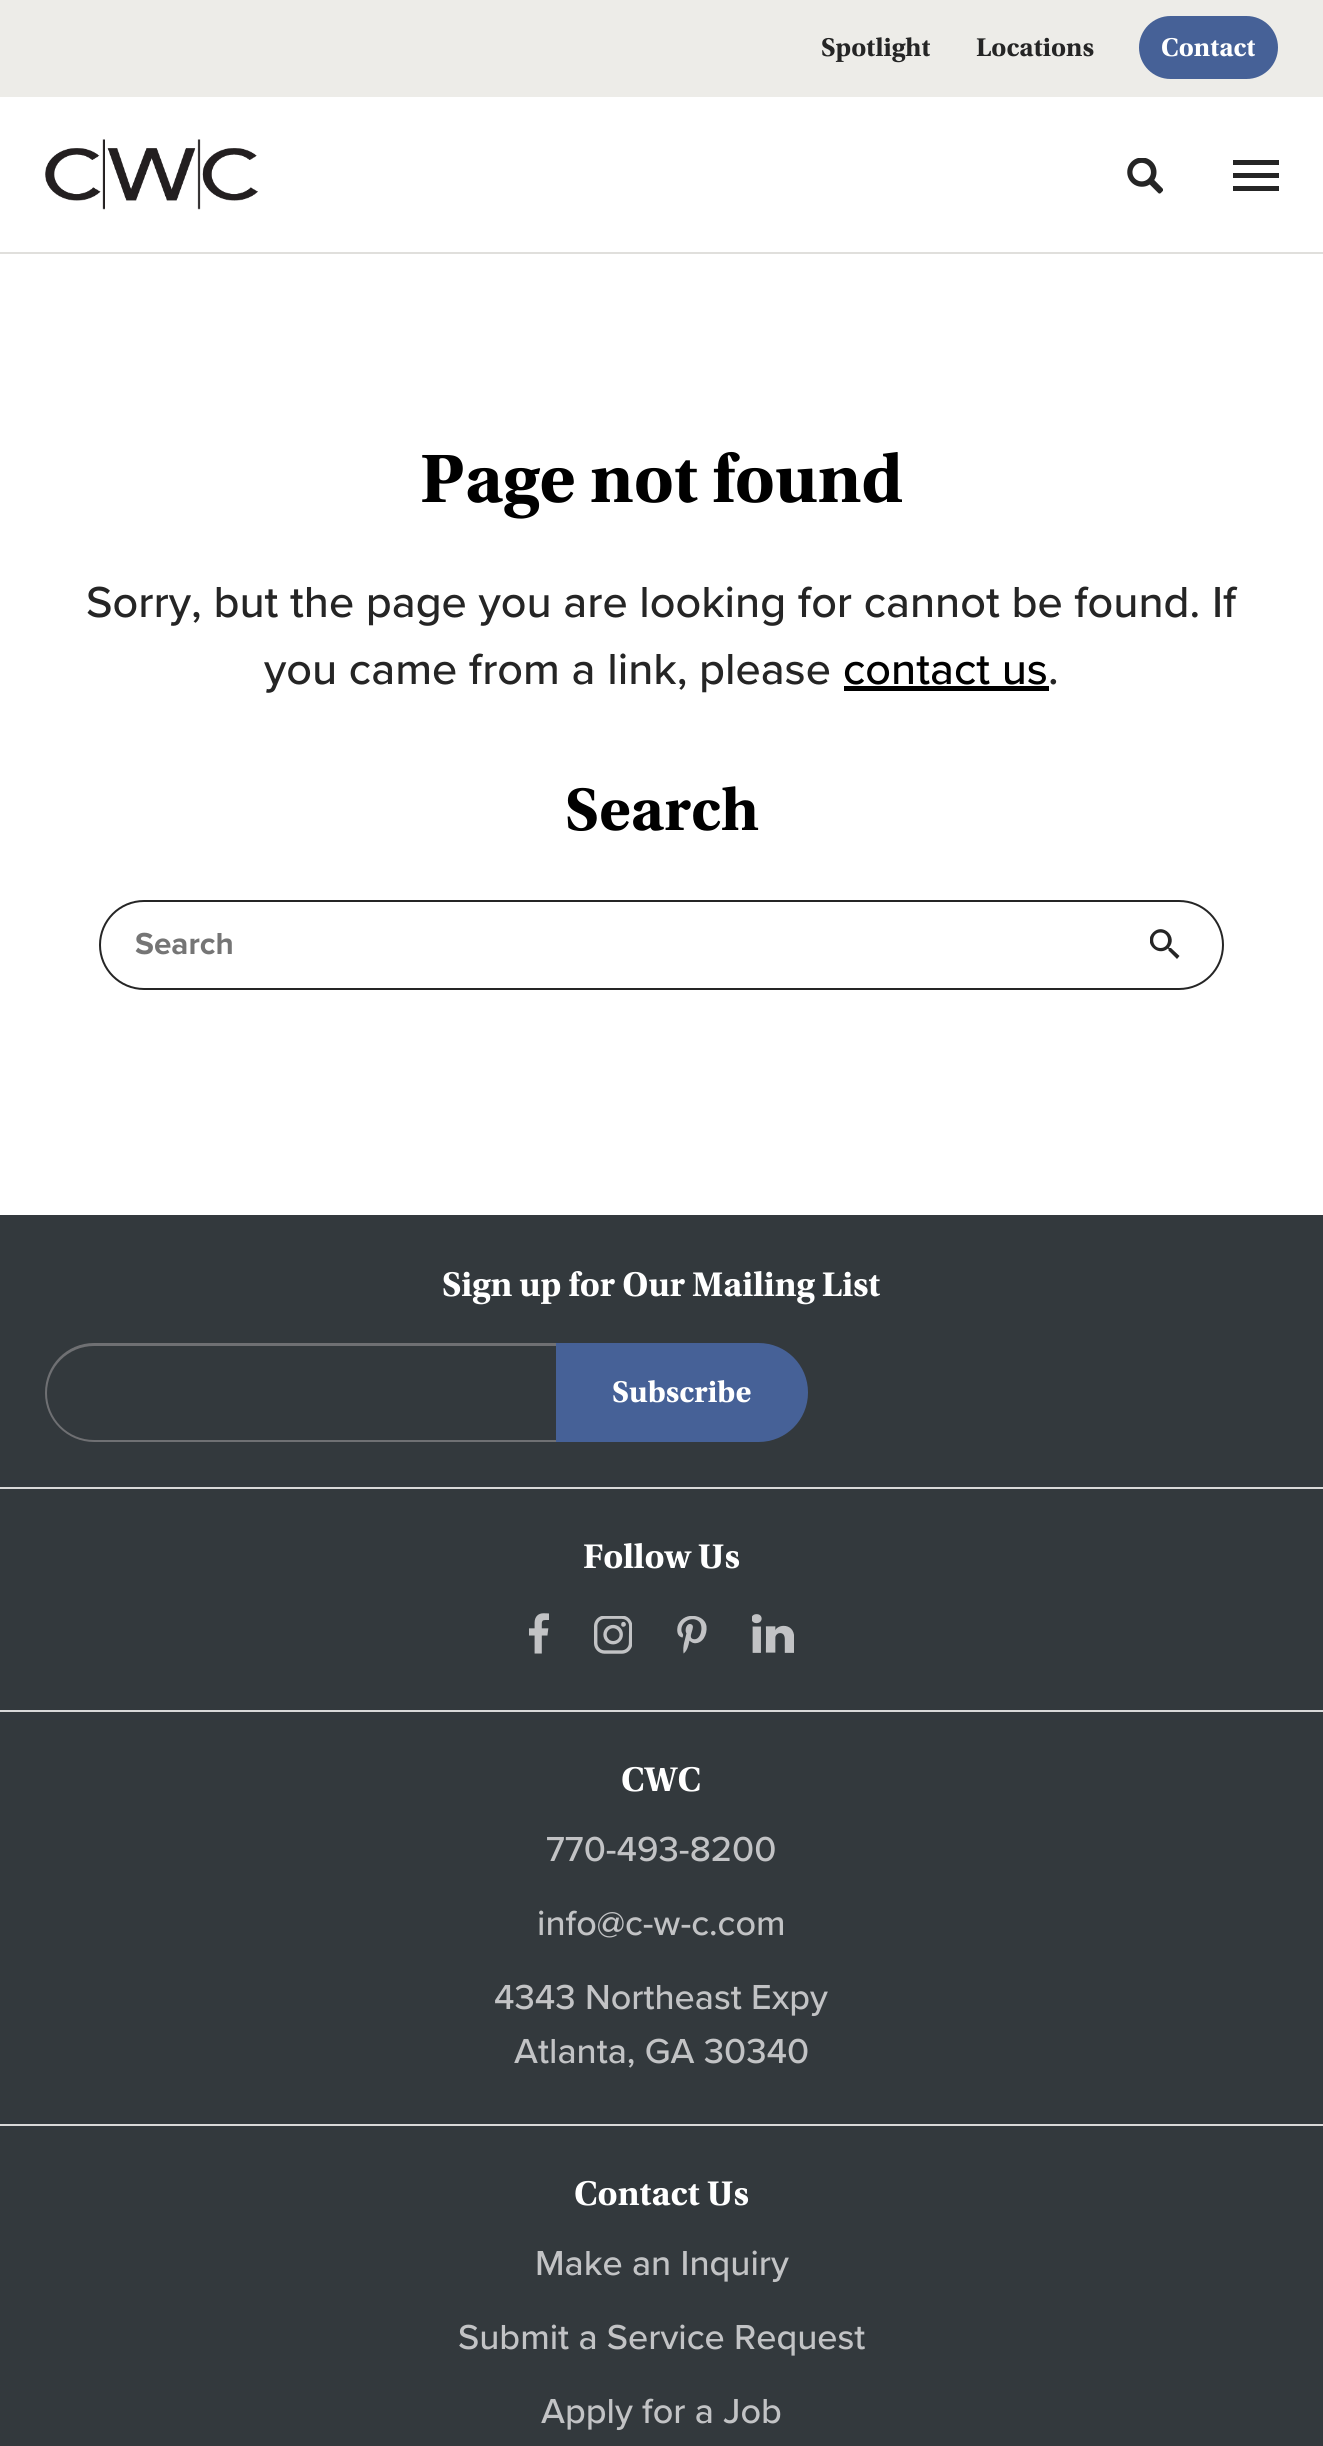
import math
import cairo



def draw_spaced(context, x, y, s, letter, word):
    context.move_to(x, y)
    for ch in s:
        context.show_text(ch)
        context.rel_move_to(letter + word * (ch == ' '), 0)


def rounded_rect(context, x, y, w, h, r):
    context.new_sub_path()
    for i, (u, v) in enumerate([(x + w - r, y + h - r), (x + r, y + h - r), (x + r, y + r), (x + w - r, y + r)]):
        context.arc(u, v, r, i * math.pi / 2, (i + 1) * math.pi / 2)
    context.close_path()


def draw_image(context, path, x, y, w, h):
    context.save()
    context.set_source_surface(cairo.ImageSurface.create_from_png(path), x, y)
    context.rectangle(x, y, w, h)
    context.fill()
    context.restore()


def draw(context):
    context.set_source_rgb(1, 1, 1)
    context.paint()
    context.set_source_rgb(237 / 255, 236 / 255, 232 / 255)
    context.rectangle(0, 0, 1323, 97)
    context.fill()
    context.set_source_rgb(70 / 255, 97 / 255, 151 / 255)
    rounded_rect(context, 1139, 16, 139, 63, 31.5)
    context.fill()
    context.set_source_rgb(224 / 255, 223 / 255, 220 / 255)
    context.rectangle(0, 252, 1323, 2)
    context.fill()
    draw_image(context, "images/1.png", 45, 139, 213, 71)
    draw_image(context, "images/2.png", 1127, 158, 36, 36)
    context.save()
    context.rectangle(1233, 160, 47, 31)
    context.clip()
    context.set_source_rgb(37 / 255, 37 / 255, 37 / 255)
    context.set_fill_rule(cairo.FillRule.EVEN_ODD)
    context.new_path()
    context.move_to(1232, 191)
    context.line_to(1279, 191)
    context.line_to(1279, 186)
    context.line_to(1232, 186)
    context.close_path()
    context.move_to(1232, 178)
    context.line_to(1279, 178)
    context.line_to(1279, 173)
    context.line_to(1232, 173)
    context.close_path()
    context.move_to(1232, 160)
    context.line_to(1232, 165)
    context.line_to(1279, 165)
    context.line_to(1279, 160)
    context.close_path()
    context.fill()
    context.restore()
    context.set_source_rgb(0, 0, 0)
    context.rectangle(844, 686, 205, 5)
    context.fill()
    rounded_rect(context, 100, 901, 1123, 88, 44)
    context.set_source_rgb(37 / 255, 37 / 255, 37 / 255)
    context.stroke()
    context.save()
    context.rectangle(1150, 929, 31, 32)
    context.clip()
    context.set_fill_rule(cairo.FillRule.EVEN_ODD)
    context.new_path()
    context.move_to(1171, 948)
    context.line_to(1169.5, 948)
    context.line_to(1169, 947.5)
    context.curve_to(1178, 937, 1163, 922.5, 1153, 932.5)
    context.curve_to(1143, 942.5, 1157.5, 957.5, 1168, 948.5)
    context.line_to(1168.5, 949)
    context.line_to(1168.5, 950.5)
    context.line_to(1177, 959)
    context.line_to(1179.5, 956)
    context.close_path()
    context.move_to(1160.5, 948)
    context.curve_to(1151, 948, 1150.5, 932.5, 1160.5, 932.5)
    context.curve_to(1170.5, 932.5, 1170.5, 948, 1160.5, 948)
    context.close_path()
    context.fill()
    context.restore()
    context.set_source_rgb(51 / 255, 57 / 255, 61 / 255)
    context.rectangle(0, 1215, 1323, 1231)
    context.fill()
    context.set_source_rgb(111 / 255, 112 / 255, 115 / 255)
    context.set_fill_rule(cairo.FillRule.EVEN_ODD)
    context.new_path()
    context.move_to(94, 1343)
    context.line_to(556, 1343)
    context.line_to(556, 1442)
    context.line_to(94, 1442)
    context.curve_to(67, 1442, 45, 1420, 45, 1393)
    context.curve_to(45, 1365, 67, 1343, 94, 1343)
    context.close_path()
    context.move_to(94, 1346)
    context.line_to(556, 1346)
    context.line_to(556, 1440)
    context.line_to(94, 1440)
    context.curve_to(68, 1440, 47, 1419, 47, 1393)
    context.curve_to(47, 1367, 68, 1346, 94, 1346)
    context.close_path()
    context.fill()
    context.set_source_rgb(70 / 255, 97 / 255, 151 / 255)
    context.new_path()
    context.move_to(556, 1343)
    context.line_to(758.5, 1343)
    context.curve_to(786, 1343, 808, 1365, 808, 1392.5)
    context.curve_to(808, 1420, 786, 1442, 758.5, 1442)
    context.line_to(556, 1442)
    context.close_path()
    context.fill()
    context.set_source_rgb(217 / 255, 217 / 255, 217 / 255)
    context.rectangle(0, 1487, 1323, 2)
    context.fill()
    draw_image(context, "images/3.png", 529, 1613, 20, 41)
    draw_image(context, "images/4.png", 594, 1616, 38, 38)
    draw_image(context, "images/5.png", 677, 1616, 30, 38)
    draw_image(context, "images/6.png", 752, 1614, 42, 39)
    context.rectangle(0, 1710, 1323, 2)
    context.fill()
    context.rectangle(0, 2124, 1323, 2)
    context.fill()
    context.select_font_face("Utopia", cairo.FontSlant.NORMAL, cairo.FontWeight.BOLD)
    context.set_font_size(27)
    context.set_source_rgb(37 / 255, 37 / 255, 37 / 255)
    context.move_to(821, 56)
    context.show_text("Spotlight")
    context.move_to(976, 56)
    context.show_text("Locations")
    context.set_source_rgb(1, 1, 1)
    context.move_to(1161, 56)
    context.show_text("Contact")
    context.set_font_size(72)
    context.set_source_rgb(0, 0, 0)
    draw_spaced(context, 420, 502, "Page not found", -0.05, 0)
    context.select_font_face("Proxima Nova Medium")
    context.set_font_size(45)
    context.set_source_rgb(37 / 255, 37 / 255, 37 / 255)
    context.move_to(86, 617)
    context.show_text("Sorry, but the page you are looking for cannot be found. If")
    context.move_to(264, 684)
    context.show_text("you came from a link, please")
    context.set_source_rgb(0, 0, 0)
    context.move_to(843, 684)
    context.show_text("contact us")
    context.set_source_rgb(37 / 255, 37 / 255, 37 / 255)
    context.move_to(1048, 684)
    context.show_text(".")
    context.select_font_face("Utopia", cairo.FontSlant.NORMAL, cairo.FontWeight.BOLD)
    context.set_font_size(63)
    context.set_source_rgb(0, 0, 0)
    draw_spaced(context, 565, 830, "Search", -0.05, 0)
    context.select_font_face("Proxima Nova", cairo.FontSlant.NORMAL, cairo.FontWeight.BOLD)
    context.set_font_size(31.5)
    context.set_source_rgb(117 / 255, 117 / 255, 117 / 255)
    context.move_to(135, 954)
    context.show_text("Search")
    context.select_font_face("Utopia", cairo.FontSlant.NORMAL, cairo.FontWeight.BOLD)
    context.set_font_size(36)
    context.set_source_rgb(1, 1, 1)
    draw_spaced(context, 442, 1296, "Sign up for Our Mailing List", -0.05, 0)
    context.set_font_size(31.5)
    context.move_to(612, 1402)
    context.show_text("Subscribe")
    context.set_font_size(36)
    draw_spaced(context, 583, 1568, "Follow Us", -0.05, 0)
    draw_spaced(context, 621, 1791, "CWC", -0.05, 0)
    context.select_font_face("Proxima Nova Medium")
    context.set_source_rgb(194 / 255, 195 / 255, 197 / 255)
    context.move_to(546, 1861)
    context.show_text("770-493-8200")
    context.move_to(537, 1935)
    context.show_text("info@c-w-c.com")
    context.move_to(494, 2009)
    context.show_text("4343 Northeast Expy")
    context.move_to(514, 2063)
    context.show_text("Atlanta, GA 30340")
    context.select_font_face("Utopia", cairo.FontSlant.NORMAL, cairo.FontWeight.BOLD)
    context.set_source_rgb(1, 1, 1)
    draw_spaced(context, 574, 2205, "Contact Us", -0.05, 0)
    context.select_font_face("Proxima Nova Medium")
    context.set_source_rgb(194 / 255, 195 / 255, 197 / 255)
    context.move_to(535, 2275)
    context.show_text("Make an Inquiry")
    context.move_to(458, 2349)
    context.show_text("Submit a Service Request")
    context.move_to(541, 2423)
    context.show_text("Apply for a Job")


surface = cairo.ImageSurface(cairo.Format.RGB24, 1323, 2446)
context = cairo.Context(surface)
options = cairo.FontOptions()
options.set_hint_metrics(cairo.HintMetrics.OFF)
options.set_hint_style(cairo.HintStyle.NONE)
context.set_font_options(options)
context.set_miter_limit(4)
draw(context)
surface.write_to_png("out.png")
